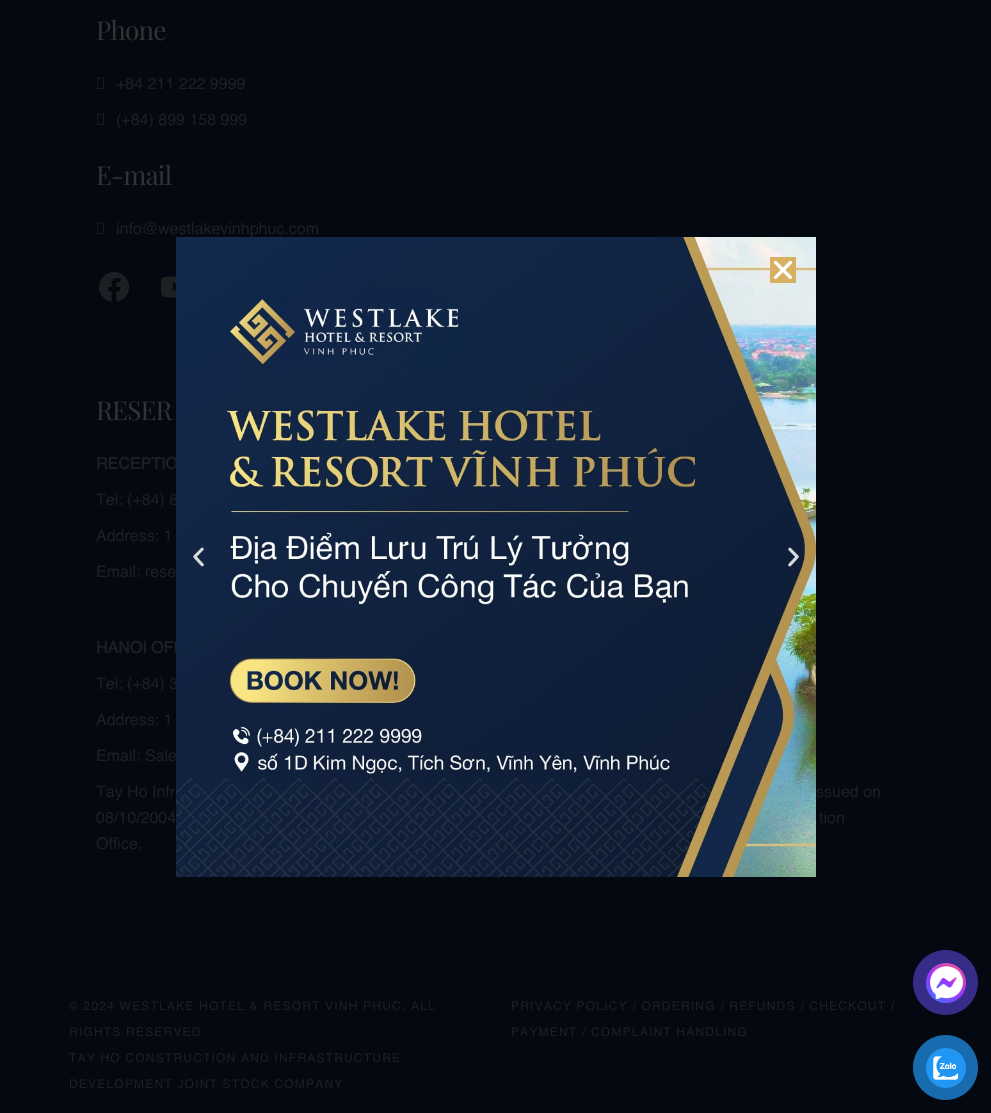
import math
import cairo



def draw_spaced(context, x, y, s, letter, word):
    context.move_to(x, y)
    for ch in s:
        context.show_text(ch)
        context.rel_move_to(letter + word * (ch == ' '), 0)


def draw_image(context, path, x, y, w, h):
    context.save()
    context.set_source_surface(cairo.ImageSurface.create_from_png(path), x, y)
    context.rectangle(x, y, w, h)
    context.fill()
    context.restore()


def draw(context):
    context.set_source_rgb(4 / 255, 8 / 255, 16 / 255)
    context.paint()
    draw_image(context, "images/1.png", 97, 77, 7, 12)
    draw_image(context, "images/1.png", 97, 113, 7, 12)
    draw_image(context, "images/1.png", 97, 222, 7, 12)
    draw_image(context, "images/2.png", 99, 272, 30, 30)
    draw_image(context, "images/3.png", 161, 276, 15, 22)
    context.set_source_rgb(55 / 255, 44 / 255, 135 / 255)
    context.arc(945.5, 982.5, 32.5, 0, 2 * math.pi)
    context.fill()
    context.set_source_rgb(106 / 255, 79 / 255, 254 / 255)
    context.arc(946, 983, 20, 0, 2 * math.pi)
    context.fill()
    draw_image(context, "images/8.png", 926, 963, 40, 40)
    context.set_source_rgba(33 / 255, 150 / 255, 243 / 255, 0.7)
    context.arc(945.5, 1067.5, 32.5, 0, 2 * math.pi)
    context.fill()
    context.set_source_rgb(33 / 255, 150 / 255, 243 / 255)
    context.arc(946, 1068, 20, 0, 2 * math.pi)
    context.fill()
    draw_image(context, "images/9.png", 933, 1056, 26, 24)
    context.select_font_face("Playfair Display")
    context.set_font_size(26)
    context.set_source_rgb(51 / 255, 51 / 255, 51 / 255)
    draw_spaced(context, 96, 40, "Phone", -0.75, 0)
    context.select_font_face("Helvetica")
    context.set_font_size(16)
    context.set_source_rgb(30 / 255, 31 / 255, 35 / 255)
    context.move_to(116, 89)
    context.show_text("+84 211 222 9999")
    context.move_to(116, 125)
    context.show_text("(+84) 899 158 999")
    context.select_font_face("Playfair Display")
    context.set_font_size(26)
    context.set_source_rgb(51 / 255, 51 / 255, 51 / 255)
    draw_spaced(context, 96, 185, "E-mail", -0.75, 0)
    context.select_font_face("Helvetica")
    context.set_font_size(16)
    context.set_source_rgb(30 / 255, 31 / 255, 35 / 255)
    context.move_to(116, 234)
    context.show_text("info@westlakevinhphuc.com")
    context.select_font_face("Playfair Display")
    context.set_font_size(26)
    context.set_source_rgb(51 / 255, 51 / 255, 51 / 255)
    draw_spaced(context, 96, 420, "RESER", -0.75, 0)
    context.select_font_face("Helvetica", cairo.FontSlant.NORMAL, cairo.FontWeight.BOLD)
    context.set_font_size(16)
    context.set_source_rgb(30 / 255, 31 / 255, 35 / 255)
    context.move_to(96, 469)
    context.show_text("RECEPTIO")
    context.select_font_face("Helvetica")
    context.move_to(96, 505)
    context.show_text("Tel: (+84) 8")
    context.move_to(96, 541)
    context.show_text("Address: 1")
    context.move_to(96, 577)
    context.show_text("Email: rese")
    context.select_font_face("Helvetica", cairo.FontSlant.NORMAL, cairo.FontWeight.BOLD)
    context.move_to(96, 653)
    context.show_text("HANOI OFF")
    context.select_font_face("Helvetica")
    context.move_to(96, 689)
    context.show_text("Tel: (+84) 3")
    context.move_to(96, 725)
    context.show_text("Address: 1")
    context.move_to(96, 761)
    context.show_text("Email: Sale")
    context.move_to(96, 797)
    context.show_text("Tay Ho Infr")
    context.move_to(816, 797)
    context.show_text("ssued on")
    context.move_to(96, 823)
    context.show_text("08/10/2004")
    context.move_to(819, 823)
    context.show_text("tion")
    context.move_to(96, 849)
    context.show_text("Office.")
    context.set_font_size(12)
    draw_spaced(context, 69, 1010, "© 2024 WESTLAKE HOTEL & RESORT VINH PHUC, ALL", 1.2, 0)
    draw_spaced(context, 69, 1036, "RIGHTS RESERVED", 1.2, 0)
    draw_spaced(context, 69, 1062, "TAY HO CONSTRUCTION AND INFRASTRUCTURE", 1.2, 0)
    draw_spaced(context, 69, 1088, "DEVELOPMENT JOINT STOCK COMPANY", 1.2, 0)
    draw_spaced(context, 511, 1010, "PRIVACY POLICY / ORDERING / REFUNDS / CHECKOUT /", 1.2, 0)
    draw_spaced(context, 511, 1036, "PAYMENT / COMPLAINT HANDLING", 1.2, 0)
    draw_image(context, "images/4.png", 176, 237, 640, 640)
    draw_image(context, "images/5.png", 193, 547, 11, 20)
    draw_image(context, "images/6.png", 788, 547, 11, 20)
    context.set_source_rgb(215 / 255, 177 / 255, 97 / 255)
    context.rectangle(770, 257, 26, 26)
    context.fill()
    draw_image(context, "images/7.png", 773, 260, 20, 20)


surface = cairo.ImageSurface(cairo.Format.RGB24, 991, 1113)
context = cairo.Context(surface)
options = cairo.FontOptions()
options.set_hint_metrics(cairo.HintMetrics.OFF)
options.set_hint_style(cairo.HintStyle.NONE)
context.set_font_options(options)
context.set_miter_limit(4)
draw(context)
surface.write_to_png("out.png")
